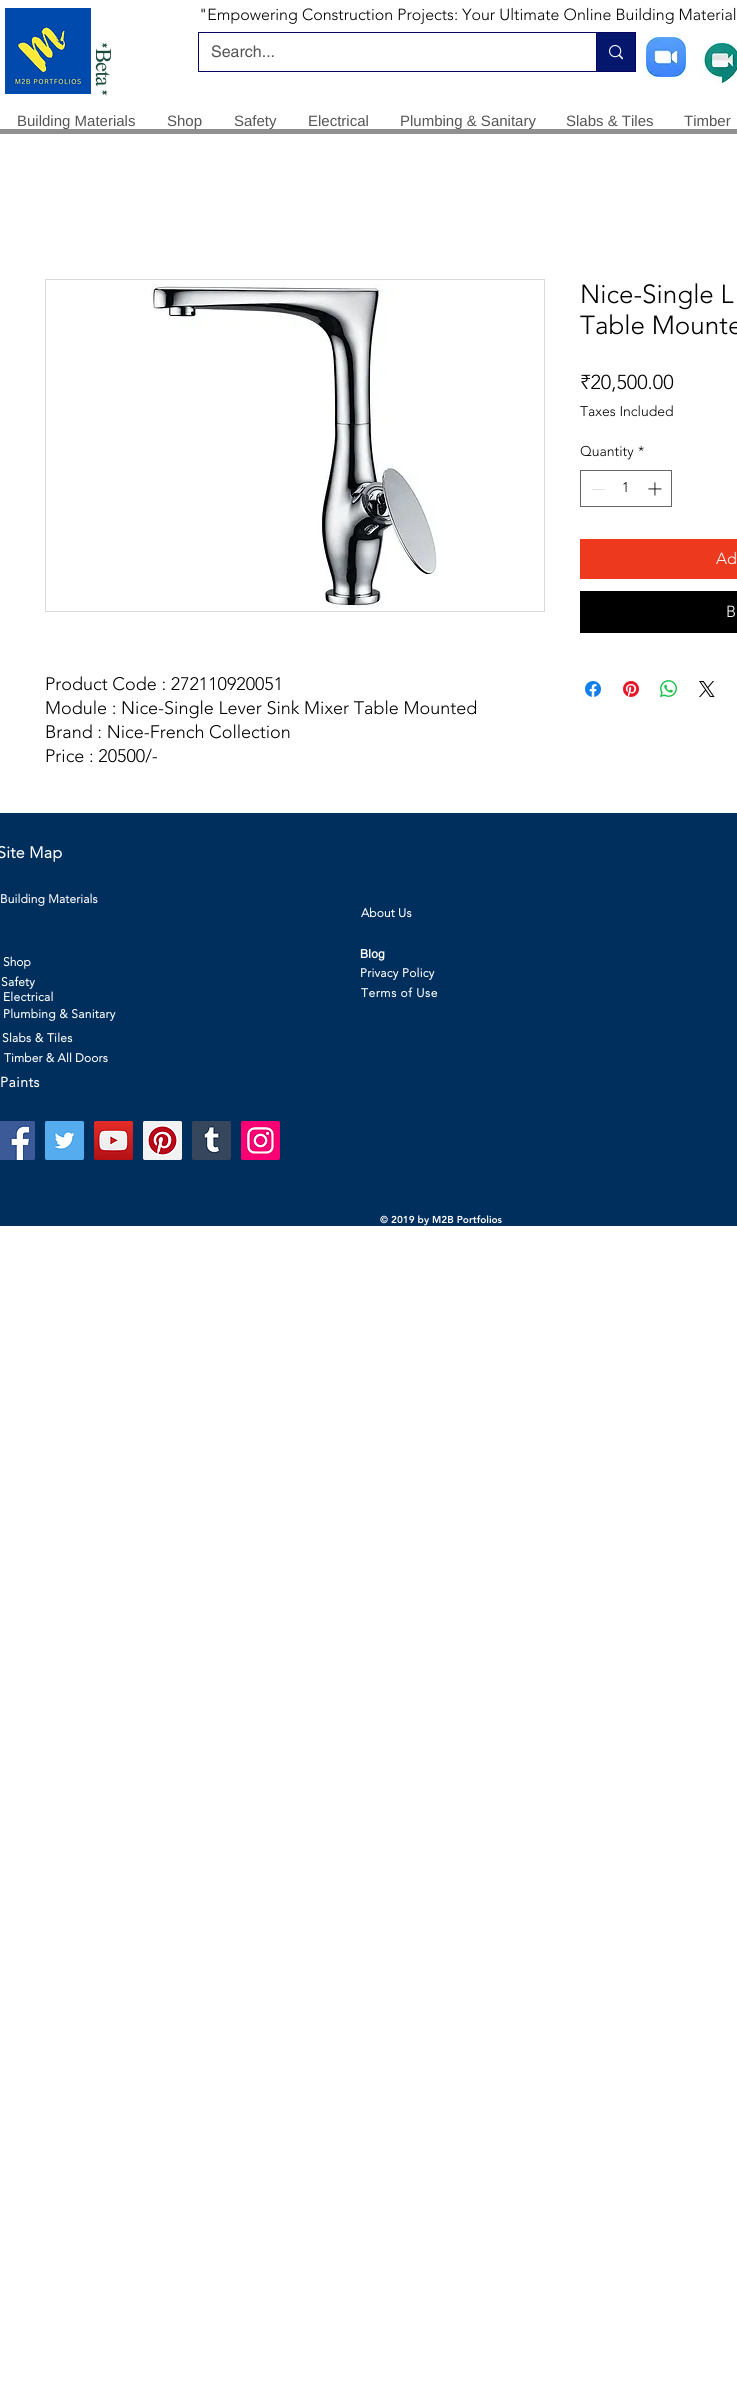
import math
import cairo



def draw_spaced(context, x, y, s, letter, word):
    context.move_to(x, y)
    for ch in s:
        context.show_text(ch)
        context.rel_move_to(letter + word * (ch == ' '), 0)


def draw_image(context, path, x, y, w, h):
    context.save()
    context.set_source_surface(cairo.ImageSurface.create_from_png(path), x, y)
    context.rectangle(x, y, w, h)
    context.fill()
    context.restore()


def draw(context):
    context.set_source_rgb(1, 1, 1)
    context.paint()
    draw_image(context, "images/1.png", 5, 8, 86, 86)
    context.rectangle(198.5, 32.5, 437, 39)
    context.set_source_rgb(6 / 255, 4 / 255, 97 / 255)
    context.set_line_width(1)
    context.stroke()
    context.set_source_rgb(5 / 255, 22 / 255, 109 / 255)
    context.rectangle(597, 33, 38, 38)
    context.fill()
    context.set_source_rgb(6 / 255, 4 / 255, 97 / 255)
    context.rectangle(596, 33, 1, 38)
    context.fill()
    draw_image(context, "images/2.png", 609, 45, 14, 15)
    draw_image(context, "images/3.png", 646, 37, 40, 40)
    draw_image(context, "images/4.png", 700, 43, 37, 40)
    context.set_source_rgb(144 / 255, 144 / 255, 144 / 255)
    context.rectangle(0, 129, 737, 5)
    context.fill()
    context.rectangle(580.5, 470.5, 91, 36)
    context.set_source_rgb(102 / 255, 102 / 255, 102 / 255)
    context.stroke()
    context.set_source_rgb(227 / 255, 227 / 255, 227 / 255)
    context.rectangle(592, 489, 13, 1)
    context.fill()
    draw_image(context, "images/5.png", 648, 482, 14, 14)
    context.set_source_rgb(237 / 255, 58 / 255, 30 / 255)
    context.rectangle(580, 539, 157, 40)
    context.fill()
    context.set_source_rgb(0, 0, 0)
    context.rectangle(580, 591, 157, 42)
    context.fill()
    draw_image(context, "images/6.png", 585, 681, 16, 16)
    draw_image(context, "images/7.png", 623, 681, 16, 16)
    draw_image(context, "images/8.png", 660, 680, 17, 17)
    draw_image(context, "images/9.png", 699, 681, 16, 16)
    context.rectangle(45.5, 279.5, 499, 332)
    context.set_source_rgb(217 / 255, 217 / 255, 217 / 255)
    context.stroke()
    draw_image(context, "images/10.png", 150, 284, 288, 324)
    context.set_source_rgb(0, 46 / 255, 93 / 255)
    context.rectangle(0, 813, 737, 413)
    context.fill()
    draw_image(context, "images/11.png", 0, 1121, 35, 39)
    draw_image(context, "images/12.png", 45, 1121, 39, 39)
    draw_image(context, "images/13.png", 94, 1121, 39, 39)
    draw_image(context, "images/14.png", 143, 1121, 39, 39)
    draw_image(context, "images/15.png", 192, 1121, 39, 39)
    draw_image(context, "images/16.png", 241, 1121, 39, 39)
    context.select_font_face("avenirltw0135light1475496 Light")
    context.set_font_size(16)
    context.set_source_rgb(0, 0, 0)
    context.move_to(199, 20)
    context.show_text("\"Empowering Construction Projects: Your Ultimate Online Building Material")
    context.select_font_face("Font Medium")
    context.set_font_size(22)
    context.set_source_rgb(27 / 255, 77 / 255, 59 / 255)
    context.save()
    context.translate(96, 42)
    context.rotate(90 * math.pi / 180)
    draw_spaced(context, 0, 0, "*Beta *", -1, 0)
    context.restore()
    context.select_font_face("helvetica")
    context.set_font_size(16)
    context.set_source_rgb(85 / 255, 85 / 255, 85 / 255)
    context.move_to(211, 57)
    context.show_text("Search...")
    context.select_font_face("Liberation Sans")
    context.set_font_size(15)
    context.move_to(17, 126)
    context.show_text("Building Materials")
    context.move_to(167, 126)
    context.show_text("Shop")
    context.move_to(234, 126)
    context.show_text("Safety")
    context.move_to(308, 126)
    context.show_text("Electrical")
    context.move_to(400, 126)
    context.show_text("Plumbing & Sanitary")
    context.move_to(566, 126)
    context.show_text("Slabs & Tiles")
    context.move_to(684, 126)
    context.show_text("Timber")
    context.select_font_face("avenirltw0135light1475496 Light")
    context.set_font_size(26)
    context.set_source_rgb(0, 0, 0)
    context.move_to(580, 303)
    context.show_text("Nice-Single L")
    context.move_to(580, 334)
    context.show_text("Table Mounte")
    context.set_font_size(20)
    context.move_to(580, 389)
    context.show_text("₹20,500.00")
    context.set_font_size(14)
    context.move_to(580, 416)
    context.show_text("Taxes Included")
    context.move_to(580, 456)
    context.show_text("Quantity")
    context.move_to(638, 456)
    context.show_text("*")
    context.move_to(622, 492)
    context.show_text("1")
    context.set_font_size(16)
    context.set_source_rgb(1, 1, 1)
    context.move_to(716, 564)
    context.show_text("Ad")
    context.move_to(726, 617)
    context.show_text("B")
    context.set_font_size(18)
    context.set_source_rgb(0, 0, 0)
    context.move_to(45, 690)
    context.show_text("Product Code : 272110920051")
    context.move_to(45, 714)
    context.show_text("Module : Nice-Single Lever Sink Mixer Table Mounted")
    context.move_to(45, 738)
    context.show_text("Brand : Nice-French Collection")
    context.move_to(45, 762)
    context.show_text("Price : 20500/-")
    context.select_font_face("avenirltw0135light1475496", cairo.FontSlant.NORMAL, cairo.FontWeight.BOLD)
    context.set_font_size(16)
    context.set_source_rgb(1, 1, 1)
    draw_spaced(context, -3, 858, "Site Map", 0.25, 0)
    context.set_font_size(12)
    draw_spaced(context, 0, 903, "Building Materials", 0.1, 0)
    draw_spaced(context, 361, 917, "About Us", 0.1, 0)
    context.move_to(3, 966)
    context.show_text("Shop")
    context.select_font_face("helvetica", cairo.FontSlant.NORMAL, cairo.FontWeight.BOLD)
    draw_spaced(context, 360, 958, "Blog", 0.25, 0)
    context.select_font_face("avenirltw0135light1475496", cairo.FontSlant.NORMAL, cairo.FontWeight.BOLD)
    draw_spaced(context, 360, 977, "Privacy Policy", 0.25, 0)
    draw_spaced(context, 1, 986, "Safety", 0.25, 0)
    draw_spaced(context, 3, 1001, "Electrical", 0.25, 0)
    draw_spaced(context, 361, 997, "Terms of Use", 0.6, 0)
    draw_spaced(context, 3, 1018, "Plumbing & Sanitary", 0.25, 0)
    draw_spaced(context, 2, 1042, "Slabs & Tiles", 0.25, 0)
    draw_spaced(context, 4, 1062, "Timber & All Doors", 0.1, 0)
    context.set_font_size(14)
    draw_spaced(context, 0, 1087, "Paints", 0.5, 0)
    context.select_font_face("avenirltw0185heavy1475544 Black")
    context.set_font_size(10)
    context.move_to(380, 1223)
    context.show_text("© 2019 by M2B Portfolios")


surface = cairo.ImageSurface(cairo.Format.RGB24, 737, 2387)
context = cairo.Context(surface)
options = cairo.FontOptions()
options.set_hint_metrics(cairo.HintMetrics.OFF)
options.set_hint_style(cairo.HintStyle.NONE)
context.set_font_options(options)
context.set_miter_limit(4)
draw(context)
surface.write_to_png("out.png")
